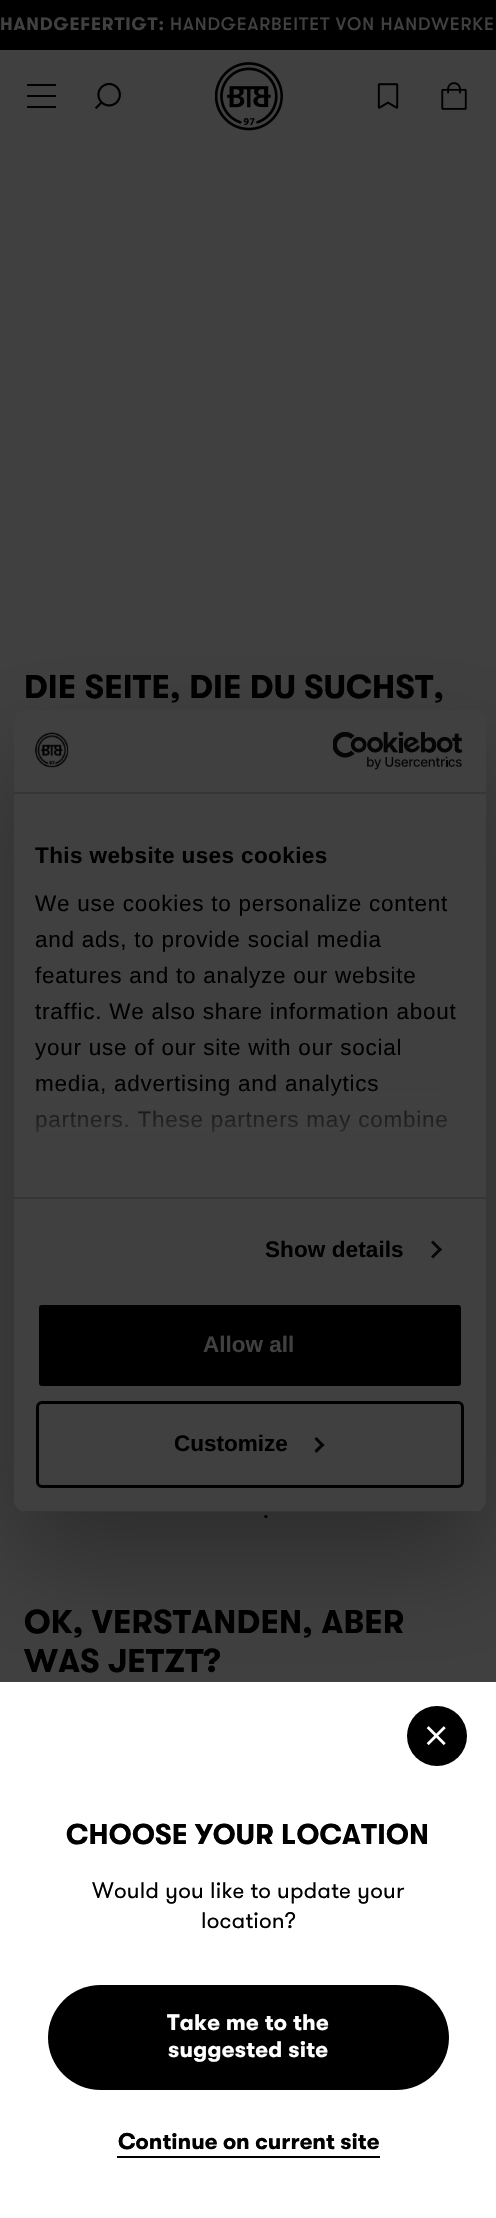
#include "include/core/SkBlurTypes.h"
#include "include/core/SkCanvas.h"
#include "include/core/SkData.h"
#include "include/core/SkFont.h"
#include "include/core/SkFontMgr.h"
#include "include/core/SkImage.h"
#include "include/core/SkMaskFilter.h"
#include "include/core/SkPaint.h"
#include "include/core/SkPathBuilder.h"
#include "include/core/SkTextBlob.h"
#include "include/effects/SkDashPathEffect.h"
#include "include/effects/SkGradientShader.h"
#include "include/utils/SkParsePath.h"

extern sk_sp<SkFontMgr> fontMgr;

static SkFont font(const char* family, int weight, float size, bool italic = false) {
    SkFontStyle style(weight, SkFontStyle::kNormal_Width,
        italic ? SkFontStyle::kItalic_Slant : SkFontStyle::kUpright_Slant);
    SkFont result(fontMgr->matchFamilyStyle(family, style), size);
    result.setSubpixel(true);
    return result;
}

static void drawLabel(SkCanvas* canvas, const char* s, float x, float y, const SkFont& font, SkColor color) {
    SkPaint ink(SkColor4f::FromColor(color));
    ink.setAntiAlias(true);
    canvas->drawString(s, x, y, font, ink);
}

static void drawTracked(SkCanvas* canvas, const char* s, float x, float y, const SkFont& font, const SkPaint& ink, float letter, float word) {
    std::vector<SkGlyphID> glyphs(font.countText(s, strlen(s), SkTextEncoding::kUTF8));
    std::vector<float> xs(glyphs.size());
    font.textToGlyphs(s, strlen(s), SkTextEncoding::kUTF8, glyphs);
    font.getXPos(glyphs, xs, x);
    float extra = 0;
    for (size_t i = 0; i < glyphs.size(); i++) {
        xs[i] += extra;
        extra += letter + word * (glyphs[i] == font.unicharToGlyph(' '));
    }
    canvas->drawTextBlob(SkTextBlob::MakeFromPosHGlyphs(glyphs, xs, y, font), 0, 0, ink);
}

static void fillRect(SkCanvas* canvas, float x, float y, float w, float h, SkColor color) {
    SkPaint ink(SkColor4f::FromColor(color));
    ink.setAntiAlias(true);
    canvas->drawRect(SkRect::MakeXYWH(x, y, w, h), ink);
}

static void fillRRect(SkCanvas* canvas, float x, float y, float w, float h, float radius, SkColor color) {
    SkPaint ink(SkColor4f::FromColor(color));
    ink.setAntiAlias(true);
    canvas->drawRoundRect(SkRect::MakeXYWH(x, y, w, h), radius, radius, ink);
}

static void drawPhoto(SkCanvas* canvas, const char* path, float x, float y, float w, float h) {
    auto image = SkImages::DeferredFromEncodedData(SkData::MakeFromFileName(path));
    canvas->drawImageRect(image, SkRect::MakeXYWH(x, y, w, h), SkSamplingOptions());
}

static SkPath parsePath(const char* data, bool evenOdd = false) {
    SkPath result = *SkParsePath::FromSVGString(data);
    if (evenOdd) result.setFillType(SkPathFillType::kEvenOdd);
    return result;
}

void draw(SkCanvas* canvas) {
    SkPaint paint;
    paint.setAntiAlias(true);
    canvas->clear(0xFF404040);
    fillRect(canvas, 0, 0, 496, 50, 0xFF000000);
    SkFont font1 = font("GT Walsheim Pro", 700, 18);
    paint.setColor(0xFF404040);
    drawTracked(canvas, "HANDGEFERTIGT:", 0, 30, font1, paint, 0.9f, 0);
    SkFont font2 = font("GT Walsheim Pro", 500, 18);
    drawTracked(canvas, "HANDGEARBEITET VON HANDWERKE", 170, 30, font2, paint, 0.9f, 0);
    fillRect(canvas, 27, 84, 29, 2, 0xFF000000);
    fillRect(canvas, 27, 95, 29, 2, 0xFF000000);
    fillRect(canvas, 27, 106, 29, 2, 0xFF000000);
    drawPhoto(canvas, "assets/img1.png", 94, 82, 27, 28);
    drawPhoto(canvas, "assets/img2.png", 215, 62, 68, 69);
    drawPhoto(canvas, "assets/img3.png", 377, 83, 22, 26);
    drawPhoto(canvas, "assets/img4.png", 441, 82, 26, 28);
    SkFont font3 = font("GT Walsheim Pro", 700, 33);
    paint.setColor(0xFF000000);
    drawTracked(canvas, "DIE SEITE, DIE DU SUCHST,", 24, 698, font3, paint, 0.25f, 0);
    SkFont font4 = font("GT Walsheim Pro", 400, 22.5f);
    drawTracked(canvas, ".", 263, 1518, font4, paint, 0.25f, 0);
    drawTracked(canvas, "OK, VERSTANDEN, ABER", 24, 1633, font3, paint, 0.25f, 0);
    drawTracked(canvas, "WAS JETZT?", 24, 1672, font3, paint, 0.25f, 0);
    paint.setColor(0x4D000000);
    paint.setMaskFilter(SkMaskFilter::MakeBlur(kNormal_SkBlurStyle, 51));
    canvas->drawRoundRect(SkRect::MakeXYWH(14, 758, 472, 802), 12, 12, paint);
    paint.setMaskFilter(nullptr);
    fillRect(canvas, 0, 1682, 496, 536, 0xFFFFFFFF);
    paint.setColor(0xFF000000);
    canvas->drawCircle(437, 1736, 30, paint);
    drawPhoto(canvas, "assets/img5.png", 426, 1726, 20, 20);
    SkFont font5 = font("GT Walsheim Pro", 700, 28.5f);
    drawTracked(canvas, "CHOOSE YOUR LOCATION", 66, 1844, font5, paint, 0.25f, 0);
    drawTracked(canvas, "Would you like to update your", 92, 1898, font4, paint, 0.25f, 0);
    drawTracked(canvas, "location?", 201, 1928, font4, paint, 0.25f, 0);
    fillRRect(canvas, 48, 1985, 401, 105, 52.5f, 0xFF000000);
    SkFont font6 = font("GT Walsheim Pro", 700, 22.5f);
    paint.setColor(0xFFFFFFFF);
    drawTracked(canvas, "Take me to the", 167, 2030, font6, paint, 0.25f, 0);
    drawTracked(canvas, "suggested site", 168, 2057, font6, paint, 0.25f, 0);
    drawLabel(canvas, "Continue on current site", 118, 2149, font6, 0xFF000000);
    fillRect(canvas, 117, 2156, 263, 2, 0xFF000000);
    fillRRect(canvas, 14, 710, 472, 802, 12, 0xFF404040);
    fillRect(canvas, 14, 792, 472, 2, 0xFF363636);
    drawPhoto(canvas, "assets/img6.png", 35, 732, 34, 36);
    drawPhoto(canvas, "assets/img7.png", 333, 732, 130, 38);
    fillRect(canvas, 14, 1197, 472, 2, 0xFF363636);
    SkFont font7 = font("Liberation Sans", 700, 22.5f);
    paint.setColor(0xFF000000);
    drawTracked(canvas, "This website uses cookies", 35, 863, font7, paint, 0.4f, 0);
    SkFont font8 = font("Liberation Sans", 400, 22.5f);
    drawTracked(canvas, "We use cookies to personalize content", 35, 911, font8, paint, 0.75f, 0);
    drawTracked(canvas, "and ads, to provide social media", 35, 947, font8, paint, 0.75f, 0);
    drawTracked(canvas, "features and to analyze our website", 35, 983, font8, paint, 0.75f, 0);
    drawTracked(canvas, "traffic. We also share information about", 35, 1019, font8, paint, 0.75f, 0);
    drawTracked(canvas, "your use of our site with our social", 35, 1055, font8, paint, 0.75f, 0);
    drawTracked(canvas, "media, advertising and analytics", 35, 1091, font8, paint, 0.75f, 0);
    drawTracked(canvas, "partners. These partners may combine", 35, 1127, font8, paint, 0.75f, 0);
    {
        const SkColor colors[] = {0xFF404040, 0xCC404040, 0x00404040};
        const float stops[] = {0, 0.5f, 1};
        const SkPoint ends[] = {{239, 1196}, {239, 1084}};
        paint.setShader(SkGradientShader::MakeLinear(ends, colors, stops, 3, SkTileMode::kClamp));
        paint.setAlpha(255);
    }
    canvas->drawRect(SkRect::MakeXYWH(36, 1087, 411, 45), paint);
    paint.setShader(nullptr);
    paint.setColor(0xFF000000);
    drawTracked(canvas, "Show details", 265, 1257, font7, paint, 0.1f, 0);
    paint.setColor(0xFF050505);
    canvas->drawPath(parsePath("M433 1240.5L442 1249.5L440 1251.5L431 1242.5Z"), paint);
    canvas->drawPath(parsePath("M440 1247.5L442 1249.5L433 1258.5L431 1256.5Z"), paint);
    canvas->save();
    canvas->clipPath(parsePath("M26 710H474C480.5 710 486 715.5 486 722V1500C486 1506.5 480.5 1512 474 1512H26C19.5 1512 14 1506.5 14 1500V722C14 715.5 19.5 710 26 710Z"), true);
    fillRect(canvas, 14, 1511, 472, 1, 0xFF363636);
    canvas->restore();
    paint.setColor(0xFF000000);
    canvas->drawRoundRect(SkRect::MakeXYWH(37.5f, 1303.5f, 425, 84), 4.5f, 4.5f, paint);
    paint.setStroke(true);
    paint.setStrokeWidth(3);
    paint.setColor(0xFF404040);
    canvas->drawRoundRect(SkRect::MakeXYWH(37.5f, 1303.5f, 425, 84), 4.5f, 4.5f, paint);
    drawLabel(canvas, "Allow all", 203, 1352, font7, 0xFF404040);
    paint.setColor(0xFF000000);
    canvas->drawRoundRect(SkRect::MakeXYWH(37.5f, 1402.5f, 425, 84), 4.5f, 4.5f, paint);
    drawLabel(canvas, "Customize", 174, 1451, font7, 0xFF000000);
    paint.setStroke(false);
    paint.setColor(0xFF050505);
    canvas->drawPath(parsePath("M316.5 1437L324.5 1445L322 1447L314.5 1439Z"), paint);
    canvas->drawPath(parsePath("M322 1443L324.5 1445L316.5 1453L314.5 1450.5Z"), paint);
}
